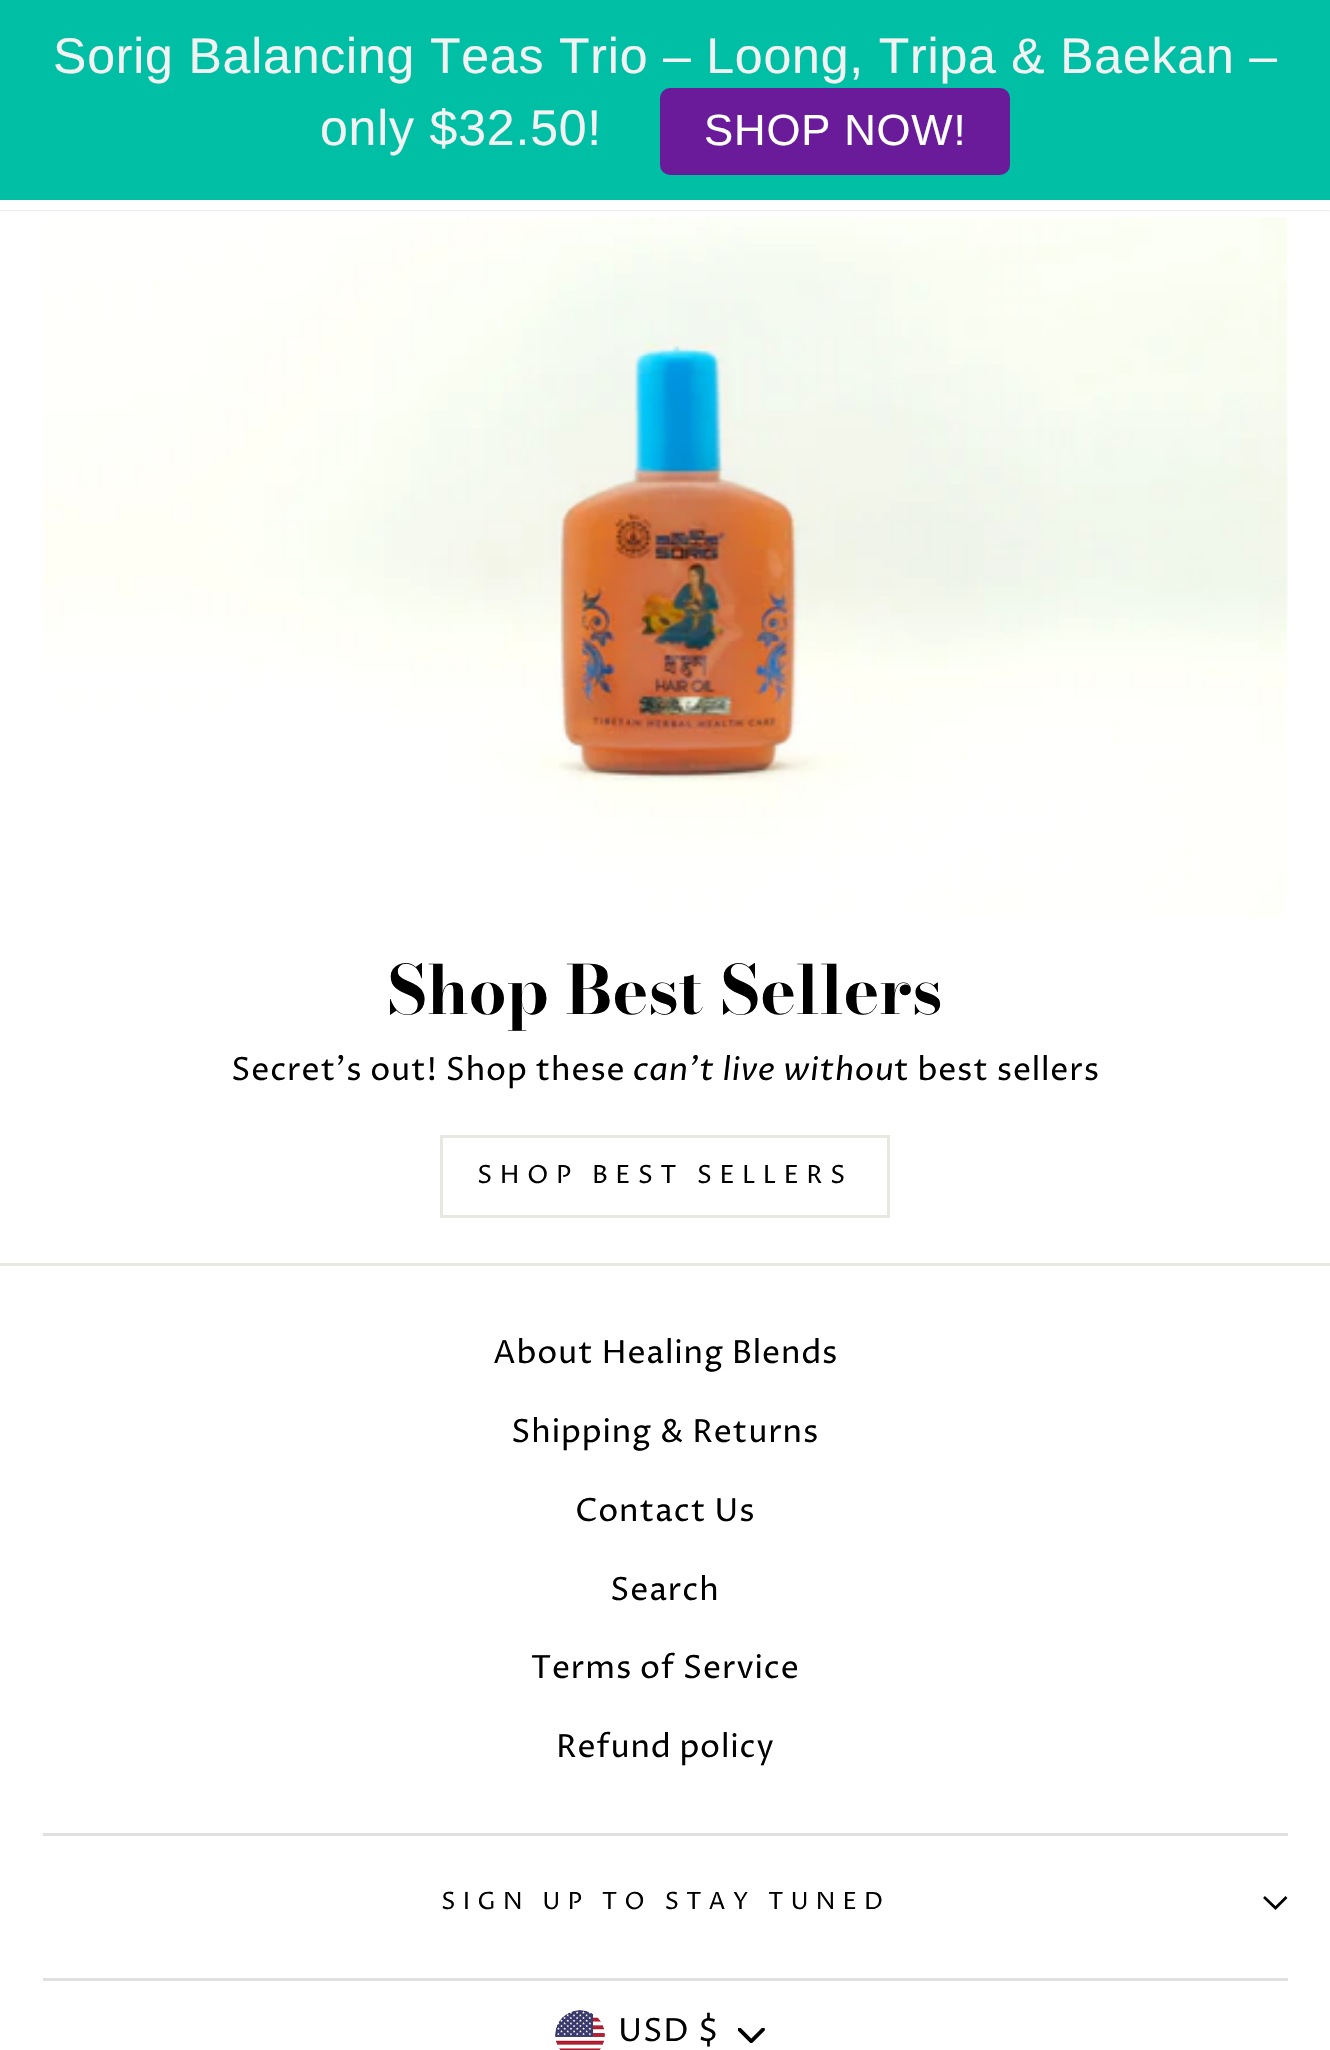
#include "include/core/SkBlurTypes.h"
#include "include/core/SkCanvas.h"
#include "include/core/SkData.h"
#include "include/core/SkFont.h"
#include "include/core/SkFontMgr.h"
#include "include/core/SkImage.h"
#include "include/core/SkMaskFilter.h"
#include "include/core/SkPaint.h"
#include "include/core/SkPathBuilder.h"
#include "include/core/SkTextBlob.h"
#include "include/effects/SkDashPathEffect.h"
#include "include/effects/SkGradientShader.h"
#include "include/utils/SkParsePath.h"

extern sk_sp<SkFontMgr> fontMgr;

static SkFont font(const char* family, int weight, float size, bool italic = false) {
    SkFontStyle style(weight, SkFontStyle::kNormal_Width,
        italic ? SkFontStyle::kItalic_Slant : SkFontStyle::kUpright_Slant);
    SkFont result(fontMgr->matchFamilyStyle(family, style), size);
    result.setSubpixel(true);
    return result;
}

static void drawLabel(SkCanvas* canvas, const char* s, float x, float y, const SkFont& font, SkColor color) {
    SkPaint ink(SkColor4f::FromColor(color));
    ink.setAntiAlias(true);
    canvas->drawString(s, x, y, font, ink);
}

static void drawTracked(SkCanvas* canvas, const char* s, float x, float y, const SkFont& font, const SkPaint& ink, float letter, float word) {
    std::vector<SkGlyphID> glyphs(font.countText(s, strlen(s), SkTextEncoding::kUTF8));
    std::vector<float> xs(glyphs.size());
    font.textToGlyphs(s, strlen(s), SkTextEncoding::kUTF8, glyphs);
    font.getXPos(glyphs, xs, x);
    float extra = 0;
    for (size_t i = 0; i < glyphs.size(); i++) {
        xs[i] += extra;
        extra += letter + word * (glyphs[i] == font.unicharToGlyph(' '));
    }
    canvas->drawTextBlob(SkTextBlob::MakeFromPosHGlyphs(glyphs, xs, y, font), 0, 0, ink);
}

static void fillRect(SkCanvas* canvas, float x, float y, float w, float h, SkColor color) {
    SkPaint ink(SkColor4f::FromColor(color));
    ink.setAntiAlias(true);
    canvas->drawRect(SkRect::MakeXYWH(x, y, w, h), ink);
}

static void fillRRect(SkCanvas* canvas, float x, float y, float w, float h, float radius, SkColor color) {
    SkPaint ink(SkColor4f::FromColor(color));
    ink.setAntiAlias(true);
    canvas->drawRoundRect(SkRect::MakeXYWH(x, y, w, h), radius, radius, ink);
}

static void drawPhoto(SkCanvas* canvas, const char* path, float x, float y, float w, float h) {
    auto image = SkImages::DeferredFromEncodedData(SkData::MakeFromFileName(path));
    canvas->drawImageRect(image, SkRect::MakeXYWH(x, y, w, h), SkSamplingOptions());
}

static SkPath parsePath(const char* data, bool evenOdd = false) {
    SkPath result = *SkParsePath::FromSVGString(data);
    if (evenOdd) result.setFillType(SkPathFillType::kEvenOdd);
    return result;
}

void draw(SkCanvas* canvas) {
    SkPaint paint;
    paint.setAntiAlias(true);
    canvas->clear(0xFFFFFFFF);
    paint.setColor(0x33000000);
    paint.setMaskFilter(SkMaskFilter::MakeBlur(kNormal_SkBlurStyle, 1));
    canvas->drawRect(SkRect::MakeXYWH(0, 0, 1330, 210), paint);
    paint.setMaskFilter(nullptr);
    fillRect(canvas, 0, 0, 1330, 200, 0xFF00BFA5);
    SkFont font1 = font("Liberation Sans", 400, 50);
    paint.setColor(0xFFF2F2F2);
    drawTracked(canvas, "Sorig Balancing Teas Trio – Loong, Tripa & Baekan –", 53, 73, font1, paint, 0.8f, 0);
    drawTracked(canvas, "only $32.50!", 320, 145, font1, paint, 0.8f, 0);
    fillRRect(canvas, 660, 88, 350, 87, 10, 0xFF6A1B9A);
    SkFont font2 = font("Liberation Sans", 400, 43.75f);
    paint.setColor(0xFFFFFFFF);
    drawTracked(canvas, "SHOP NOW!", 704, 145, font2, paint, 0.8f, 0);
    fillRect(canvas, 0, 200, 1330, 10, 0xFFFFFFFF);
    drawPhoto(canvas, "assets/img1.png", 43, 217, 1245, 701);
    SkFont font3 = font("Bodoni Moda", 700, 67);
    drawLabel(canvas, "Shop Best Sellers", 387, 1014, font3, 0xFF000000);
    SkFont font4 = font("Proza Libre", 400, 31.9f);
    paint.setColor(0xFF000000);
    drawTracked(canvas, "Secret's out! Shop these", 231, 1080, font4, paint, 0.8f, 0);
    SkFont font5 = font("Proza Libre", 400, 31.9f, true);
    drawTracked(canvas, "can't live withou", 633, 1080, font5, paint, 0.8f, 0);
    drawTracked(canvas, "t best sellers", 894, 1080, font4, paint, 0.8f, 0);
    paint.setStroke(true);
    paint.setStrokeWidth(3);
    paint.setColor(0xFFE8E8E1);
    canvas->drawRect(SkRect::MakeXYWH(441.5f, 1136.5f, 447, 80), paint);
    SkFont font6 = font("Proza Libre", 400, 25);
    paint.setStroke(false);
    paint.setColor(0xFF000000);
    drawTracked(canvas, "SHOP BEST SELLERS", 477, 1183, font6, paint, 7.5f, 0);
    fillRect(canvas, 0, 1263, 1330, 3, 0xFFE8E8E1);
    drawTracked(canvas, "About Healing Blends", 493, 1363, font4, paint, 0.8f, 0);
    drawTracked(canvas, "Shipping & Returns", 511, 1442, font4, paint, 0.8f, 0);
    drawTracked(canvas, "Contact Us", 575, 1521, font4, paint, 0.8f, 0);
    drawTracked(canvas, "Search", 610, 1600, font4, paint, 0.8f, 0);
    drawTracked(canvas, "Terms of Service", 531, 1678, font4, paint, 0.8f, 0);
    drawTracked(canvas, "Refund policy", 556, 1757, font4, paint, 0.8f, 0);
    fillRect(canvas, 43, 1833, 1245, 3, 0xFFE0E0E0);
    SkFont font7 = font("Proza Libre", 400, 23.9f);
    drawTracked(canvas, "SIGN UP TO STAY TUNED", 441, 1909, font7, paint, 7.2f, 0);
    paint.setStroke(true);
    paint.setStrokeWidth(2.7f);
    canvas->drawPath(parsePath("M1264 1897L1275.5 1908L1286.5 1897"), paint);
    fillRect(canvas, 43, 1978, 1245, 3, 0xFFE0E0E0);
    drawPhoto(canvas, "assets/img2.png", 738, 2028, 27, 15);
    drawPhoto(canvas, "assets/img3.png", 555, 2010, 50, 40);
    paint.setStroke(false);
    drawTracked(canvas, "USD $", 618, 2041, font4, paint, 0.8f, 0);
}
